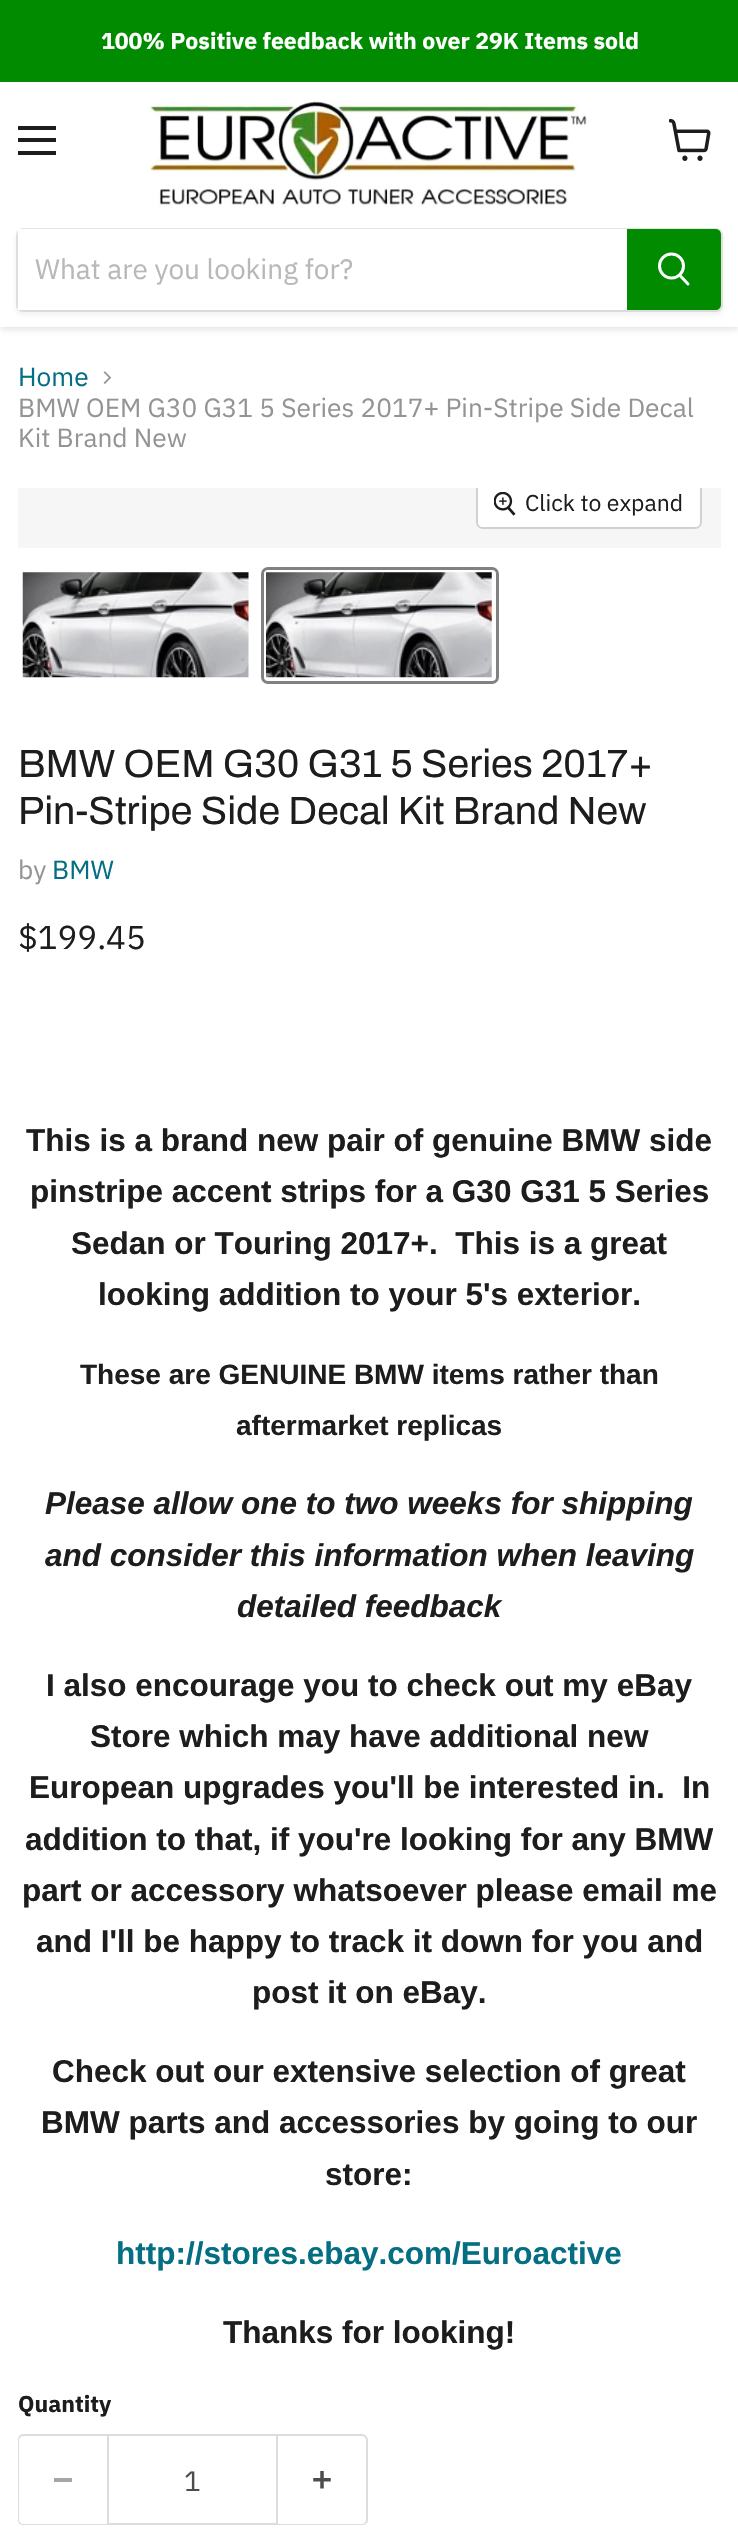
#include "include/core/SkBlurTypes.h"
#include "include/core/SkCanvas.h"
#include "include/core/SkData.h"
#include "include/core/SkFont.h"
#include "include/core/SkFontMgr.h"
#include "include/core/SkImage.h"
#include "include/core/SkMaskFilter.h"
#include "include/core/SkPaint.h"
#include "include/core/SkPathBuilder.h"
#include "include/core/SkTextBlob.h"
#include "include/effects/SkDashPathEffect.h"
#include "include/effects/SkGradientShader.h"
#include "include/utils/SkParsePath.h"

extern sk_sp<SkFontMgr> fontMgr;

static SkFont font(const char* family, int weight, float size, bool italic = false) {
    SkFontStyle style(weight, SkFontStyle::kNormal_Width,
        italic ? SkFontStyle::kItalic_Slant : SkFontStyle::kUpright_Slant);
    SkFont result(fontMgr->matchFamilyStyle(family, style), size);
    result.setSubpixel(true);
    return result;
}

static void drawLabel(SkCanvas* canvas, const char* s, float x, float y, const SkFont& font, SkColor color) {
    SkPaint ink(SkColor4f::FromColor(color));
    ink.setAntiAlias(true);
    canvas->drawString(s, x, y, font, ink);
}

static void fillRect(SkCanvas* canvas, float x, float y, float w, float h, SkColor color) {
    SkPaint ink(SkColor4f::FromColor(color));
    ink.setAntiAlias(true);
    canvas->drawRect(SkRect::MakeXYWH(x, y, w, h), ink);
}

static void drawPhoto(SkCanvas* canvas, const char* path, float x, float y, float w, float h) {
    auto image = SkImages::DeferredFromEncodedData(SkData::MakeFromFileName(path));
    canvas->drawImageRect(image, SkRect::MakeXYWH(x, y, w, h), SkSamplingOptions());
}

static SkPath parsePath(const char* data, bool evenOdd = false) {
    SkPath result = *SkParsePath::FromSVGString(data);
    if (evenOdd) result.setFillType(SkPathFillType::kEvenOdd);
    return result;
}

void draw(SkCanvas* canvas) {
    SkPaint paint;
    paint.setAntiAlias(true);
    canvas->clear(0xFFFFFFFF);
    fillRect(canvas, 0, 0, 738, 82, 0xFF008B00);
    SkFont font1 = font("IBM Plex Sans", 700, 23);
    drawLabel(canvas, "100% Positive feedback with over 29K Items sold", 101, 49, font1, 0xFFFFFFFF);
    paint.setColor(0x40808080);
    paint.setMaskFilter(SkMaskFilter::MakeBlur(kNormal_SkBlurStyle, 3.5f));
    canvas->drawRect(SkRect::MakeXYWH(0, 84, 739, 245), paint);
    paint.setMaskFilter(nullptr);
    fillRect(canvas, 0, 82, 738, 245, 0xFFFFFFFF);
    fillRect(canvas, 18, 126, 38, 4, 0xFF1D1D1D);
    fillRect(canvas, 18, 138, 38, 4, 0xFF1D1D1D);
    fillRect(canvas, 18, 151, 38, 4, 0xFF1D1D1D);
    drawPhoto(canvas, "assets/img1.png", 669, 119, 42, 42);
    drawPhoto(canvas, "assets/img2.png", 150, 100, 437, 107);
    paint.setColor(0x1C808080);
    paint.setMaskFilter(SkMaskFilter::MakeBlur(kNormal_SkBlurStyle, 2.5f));
    canvas->drawRoundRect(SkRect::MakeXYWH(16, 231, 707, 84), 7, 7, paint);
    paint.setMaskFilter(nullptr);
    paint.setStroke(true);
    paint.setStrokeWidth(2);
    paint.setColor(0x33808080);
    canvas->drawRoundRect(SkRect::MakeXYWH(17, 229, 705, 82), 6, 6, paint);
    fillRect(canvas, 18, 229, 609, 81, 0xFFFFFFFF);
    SkFont font2 = font("IBM Plex Sans", 400, 28);
    drawLabel(canvas, "What are you looking for?", 35, 279, font2, 0xFFB8B8B8);
    paint.setStroke(false);
    paint.setColor(0xFF008B00);
    canvas->drawPath(parsePath("M628 230H716C718 230 720 232 720 234V305C720 307 718 309 716 309H628Z"), paint);
    paint.setStroke(true);
    canvas->drawPath(parsePath("M628 230H716C718 230 720 232 720 234V305C720 307 718 309 716 309H628Z"), paint);
    paint.setStrokeWidth(3);
    paint.setStrokeCap(SkPaint::kRound_Cap);
    paint.setColor(0xFFFFFFFF);
    canvas->drawPath(parsePath("M688 284L680 275.5"), paint);
    paint.setStrokeCap(SkPaint::kButt_Cap);
    canvas->drawCircle(671.5f, 266, 12, paint);
    SkFont font3 = font("IBM Plex Sans", 400, 26.25f);
    drawLabel(canvas, "Home", 18, 386, font3, 0xFF046E82);
    drawPhoto(canvas, "assets/img3.png", 103, 371, 9, 13);
    drawLabel(canvas, "BMW OEM G30 G31 5 Series 2017+ Pin-Stripe Side Decal", 18, 417, font3, 0xFF949494);
    drawLabel(canvas, "Kit Brand New", 18, 447, font3, 0xFF949494);
    fillRect(canvas, 18, 488, 703, 60, 0xFFF6F6F6);
    canvas->save();
    canvas->clipRect(SkRect::MakeXYWH(18, 488, 703, 60));
    paint.setStrokeWidth(2);
    paint.setColor(0xFFD1D1D1);
    canvas->drawRoundRect(SkRect::MakeXYWH(477, 479, 224, 49), 6, 6, paint);
    canvas->restore();
    paint.setStroke(false);
    paint.setColor(0xE6FFFFFF);
    canvas->drawPath(parsePath("M478 488H700V522C700 525 698 527 695 527H483C480 527 478 525 478 522Z"), paint);
    drawPhoto(canvas, "assets/img4.png", 494, 492, 22, 24);
    SkFont font4 = font("IBM Plex Sans", 400, 23);
    drawLabel(canvas, "Click to expand", 525, 511, font4, 0xFF1D1D1D);
    drawPhoto(canvas, "assets/img5.png", 22, 572, 227, 106);
    paint.setStroke(true);
    paint.setStrokeWidth(3);
    paint.setColor(0xFF818181);
    canvas->drawRoundRect(SkRect::MakeXYWH(262.5f, 568.5f, 235, 114), 5.5f, 5.5f, paint);
    drawPhoto(canvas, "assets/img6.png", 266, 572, 226, 106);
    SkFont font5 = font("Archivo", 400, 39.4f);
    drawLabel(canvas, "BMW OEM G30 G31 5 Series 2017+", 18, 777, font5, 0xFF1D1D1D);
    drawLabel(canvas, "Pin-Stripe Side Decal Kit Brand New", 18, 824, font5, 0xFF1D1D1D);
    drawLabel(canvas, "by", 18, 879, font3, 0xFF949494);
    drawLabel(canvas, "BMW", 52, 879, font3, 0xFF046E82);
    SkFont font6 = font("IBM Plex Sans", 400, 33);
    drawLabel(canvas, "$199.45", 18, 949, font6, 0xFF1D1D1D);
    SkFont font7 = font("Liberation Sans", 700, 31.5f);
    drawLabel(canvas, "This is a brand new pair of genuine BMW side", 26, 1151, font7, 0xFF1D1D1D);
    drawLabel(canvas, "pinstripe accent strips for a G30 G31 5 Series", 30, 1202, font7, 0xFF1D1D1D);
    drawLabel(canvas, "Sedan or Touring 2017+.  This is a great", 71, 1254, font7, 0xFF1D1D1D);
    drawLabel(canvas, "looking addition to your 5's exterior.", 98, 1305, font7, 0xFF1D1D1D);
    SkFont font8 = font("Liberation Sans", 700, 28);
    drawLabel(canvas, "These are GENUINE BMW items rather than", 80, 1384, font8, 0xFF1D1D1D);
    drawLabel(canvas, "aftermarket replicas", 236, 1435, font8, 0xFF1D1D1D);
    SkFont font9 = font("Liberation Sans", 700, 31.5f, true);
    drawLabel(canvas, "Please allow one to two weeks for shipping", 45, 1514, font9, 0xFF1D1D1D);
    drawLabel(canvas, "and consider this information when leaving", 45, 1566, font9, 0xFF1D1D1D);
    drawLabel(canvas, "detailed feedback", 237, 1617, font9, 0xFF1D1D1D);
    drawLabel(canvas, "I also encourage you to check out my eBay", 46, 1696, font7, 0xFF1D1D1D);
    drawLabel(canvas, "Store which may have additional new", 90, 1747, font7, 0xFF1D1D1D);
    drawLabel(canvas, "European upgrades you'll be interested in.  In", 29, 1798, font7, 0xFF1D1D1D);
    drawLabel(canvas, "addition to that, if you're looking for any BMW", 25, 1850, font7, 0xFF1D1D1D);
    drawLabel(canvas, "part or accessory whatsoever please email me", 22, 1901, font7, 0xFF1D1D1D);
    drawLabel(canvas, "and I'll be happy to track it down for you and", 36, 1952, font7, 0xFF1D1D1D);
    drawLabel(canvas, "post it on eBay.", 252, 2003, font7, 0xFF1D1D1D);
    drawLabel(canvas, "Check out our extensive selection of great", 52, 2082, font7, 0xFF1D1D1D);
    drawLabel(canvas, "BMW parts and accessories by going to our", 41, 2133, font7, 0xFF1D1D1D);
    drawLabel(canvas, "store:", 325, 2185, font7, 0xFF1D1D1D);
    drawLabel(canvas, "http://stores.ebay.com/Euroactive", 116, 2264, font7, 0xFF046E82);
    drawLabel(canvas, "Thanks for looking!", 223, 2343, font7, 0xFF1D1D1D);
    drawLabel(canvas, "Quantity", 18, 2412, font1, 0xFF1D1D1D);
    paint.setStroke(false);
    paint.setColor(0xFFDDDDDD);
    canvas->drawPath(parsePath("M23 2434H107V2525H23C20 2525 18 2523 18 2520V2440C18 2437 20 2434 23 2434ZM23 2436H107V2524H23C21 2524 19 2522 19 2520V2440C19 2438 21 2436 23 2436Z", true), paint);
    fillRect(canvas, 54, 2478, 18, 4, 0xFFA6A6A6);
    paint.setStroke(true);
    paint.setStrokeWidth(2);
    canvas->drawRect(SkRect::MakeXYWH(108, 2435, 169, 89), paint);
    drawLabel(canvas, "1", 184, 2491, font2, 0xFF4D4D4D);
    paint.setStroke(false);
    canvas->drawPath(parsePath("M278 2434H362C365 2434 368 2437 368 2440V2520C368 2523 365 2525 362 2525H278ZM278 2436H362C364 2436 366 2438 366 2440V2520C366 2522 364 2524 362 2524H278Z", true), paint);
    drawPhoto(canvas, "assets/img7.png", 313, 2471, 18, 18);
}
